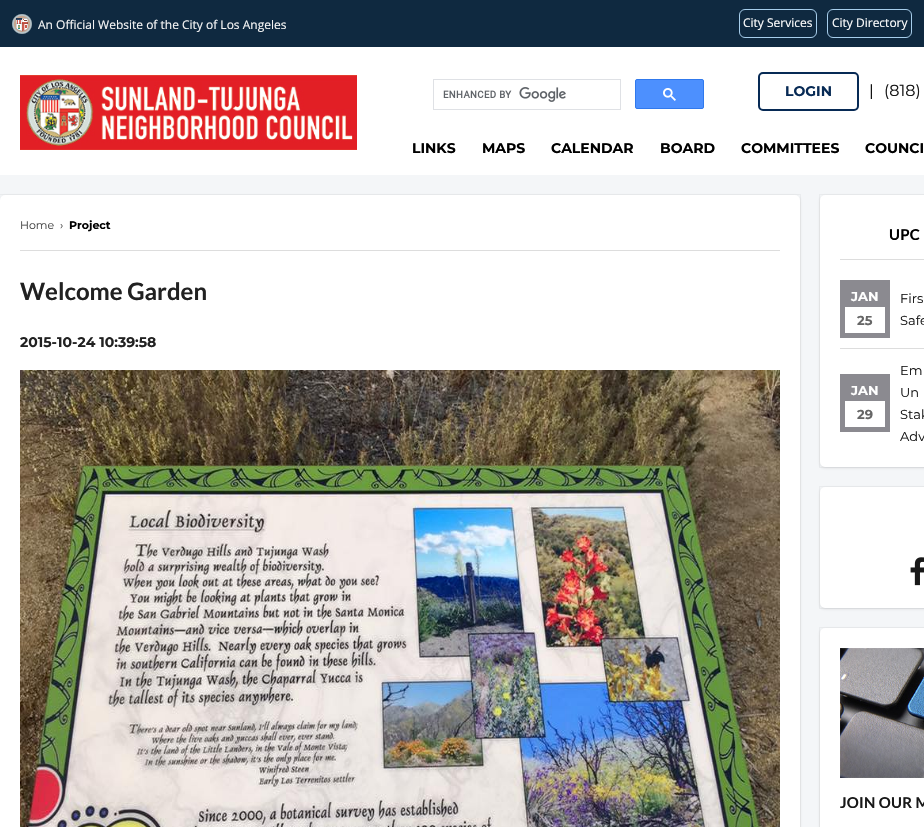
#include "include/core/SkBlurTypes.h"
#include "include/core/SkCanvas.h"
#include "include/core/SkData.h"
#include "include/core/SkFont.h"
#include "include/core/SkFontMgr.h"
#include "include/core/SkImage.h"
#include "include/core/SkMaskFilter.h"
#include "include/core/SkPaint.h"
#include "include/core/SkPathBuilder.h"
#include "include/core/SkTextBlob.h"
#include "include/effects/SkDashPathEffect.h"
#include "include/effects/SkGradientShader.h"
#include "include/utils/SkParsePath.h"

extern sk_sp<SkFontMgr> fontMgr;

static SkFont font(const char* family, int weight, float size, bool italic = false) {
    SkFontStyle style(weight, SkFontStyle::kNormal_Width,
        italic ? SkFontStyle::kItalic_Slant : SkFontStyle::kUpright_Slant);
    SkFont result(fontMgr->matchFamilyStyle(family, style), size);
    result.setSubpixel(true);
    return result;
}

static void drawLabel(SkCanvas* canvas, const char* s, float x, float y, const SkFont& font, SkColor color) {
    SkPaint ink(SkColor4f::FromColor(color));
    ink.setAntiAlias(true);
    canvas->drawString(s, x, y, font, ink);
}

static void drawTracked(SkCanvas* canvas, const char* s, float x, float y, const SkFont& font, const SkPaint& ink, float letter, float word) {
    std::vector<SkGlyphID> glyphs(font.countText(s, strlen(s), SkTextEncoding::kUTF8));
    std::vector<float> xs(glyphs.size());
    font.textToGlyphs(s, strlen(s), SkTextEncoding::kUTF8, glyphs);
    font.getXPos(glyphs, xs, x);
    float extra = 0;
    for (size_t i = 0; i < glyphs.size(); i++) {
        xs[i] += extra;
        extra += letter + word * (glyphs[i] == font.unicharToGlyph(' '));
    }
    canvas->drawTextBlob(SkTextBlob::MakeFromPosHGlyphs(glyphs, xs, y, font), 0, 0, ink);
}

static void fillRect(SkCanvas* canvas, float x, float y, float w, float h, SkColor color) {
    SkPaint ink(SkColor4f::FromColor(color));
    ink.setAntiAlias(true);
    canvas->drawRect(SkRect::MakeXYWH(x, y, w, h), ink);
}

static void fillRRect(SkCanvas* canvas, float x, float y, float w, float h, float radius, SkColor color) {
    SkPaint ink(SkColor4f::FromColor(color));
    ink.setAntiAlias(true);
    canvas->drawRoundRect(SkRect::MakeXYWH(x, y, w, h), radius, radius, ink);
}

static void drawPhoto(SkCanvas* canvas, const char* path, float x, float y, float w, float h) {
    auto image = SkImages::DeferredFromEncodedData(SkData::MakeFromFileName(path));
    canvas->drawImageRect(image, SkRect::MakeXYWH(x, y, w, h), SkSamplingOptions());
}

void draw(SkCanvas* canvas) {
    SkPaint paint;
    paint.setAntiAlias(true);
    canvas->clear(0xFFF4F6F8);
    fillRect(canvas, 0, 0, 924, 47, 0xFF0F2940);
    drawPhoto(canvas, "assets/img1.png", 12, 14, 20, 20);
    SkFont font1 = font("Open Sans", 400, 12);
    drawLabel(canvas, "An Official Website of the City of Los Angeles", 38, 29, font1, 0xFFF5F5F5);
    paint.setStroke(true);
    paint.setStrokeWidth(1);
    paint.setColor(0xFFA7CEEC);
    canvas->drawRoundRect(SkRect::MakeXYWH(739.5f, 9.5f, 77, 28), 5.5f, 5.5f, paint);
    drawLabel(canvas, "City Services", 743, 27, font1, 0xFFFFFFFF);
    canvas->drawRoundRect(SkRect::MakeXYWH(827.5f, 9.5f, 84, 28), 5.5f, 5.5f, paint);
    drawLabel(canvas, "City Directory", 832, 27, font1, 0xFFFFFFFF);
    fillRect(canvas, 0, 47, 924, 128, 0xFFFFFFFF);
    drawPhoto(canvas, "assets/img2.png", 20, 75, 337, 75);
    paint.setColor(0xFFDFE1E5);
    canvas->drawRect(SkRect::MakeXYWH(433.5f, 79.5f, 187, 30), paint);
    drawPhoto(canvas, "assets/img3.png", 443, 87, 123, 15);
    paint.setStroke(false);
    paint.setColor(0xFF4D90FE);
    canvas->drawRoundRect(SkRect::MakeXYWH(635.5f, 79.5f, 68, 29), 1.5f, 1.5f, paint);
    paint.setStroke(true);
    paint.setColor(0xFF3079ED);
    canvas->drawRoundRect(SkRect::MakeXYWH(635.5f, 79.5f, 68, 29), 1.5f, 1.5f, paint);
    drawPhoto(canvas, "assets/img4.png", 663, 88, 13, 13);
    paint.setStrokeWidth(2);
    paint.setColor(0xFF072A55);
    canvas->drawRoundRect(SkRect::MakeXYWH(759, 73, 99, 37), 4, 4, paint);
    SkFont font2 = font("Montserrat", 700, 14);
    drawLabel(canvas, "LOGIN", 785, 96, font2, 0xFF072A55);
    SkFont font3 = font("Montserrat", 400, 16);
    drawLabel(canvas, "|", 869, 96, font3, 0xFF000000);
    drawLabel(canvas, "(818)", 884, 96, font3, 0xFF181818);
    drawLabel(canvas, "LINKS", 412, 153, font2, 0xFF000000);
    drawLabel(canvas, "MAPS", 482, 153, font2, 0xFF000000);
    drawLabel(canvas, "CALENDAR", 551, 153, font2, 0xFF000000);
    drawLabel(canvas, "BOARD", 660, 153, font2, 0xFF000000);
    drawLabel(canvas, "COMMITTEES", 741, 153, font2, 0xFF000000);
    drawLabel(canvas, "COUNCI", 865, 153, font2, 0xFF000000);
    paint.setStroke(false);
    paint.setColor(0x263F3F44);
    paint.setMaskFilter(SkMaskFilter::MakeBlur(kNormal_SkBlurStyle, 1.5f));
    canvas->drawRoundRect(SkRect::MakeXYWH(0, 196, 800, 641), 5, 5, paint);
    paint.setMaskFilter(nullptr);
    paint.setStroke(true);
    paint.setStrokeWidth(1);
    paint.setColor(0x0D3F3F44);
    canvas->drawRect(SkRect::MakeXYWH(-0.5f, 194.5f, 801, 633), paint);
    fillRRect(canvas, 0, 195, 800, 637, 5, 0xFFFFFFFF);
    fillRect(canvas, 20, 250, 760, 1, 0xFFDDDDDD);
    SkFont font4 = font("Montserrat", 400, 11);
    drawLabel(canvas, "Home", 20, 229, font4, 0xFF444444);
    drawLabel(canvas, "›", 60, 229, font4, 0xFF444444);
    SkFont font5 = font("Montserrat", 700, 11);
    drawLabel(canvas, "Project", 69, 229, font5, 0xFF000000);
    SkFont font6 = font("Lato", 700, 24);
    drawLabel(canvas, "Welcome Garden", 20, 300, font6, 0xFF212121);
    drawLabel(canvas, "2015-10-24 10:39:58", 20, 347, font2, 0xFF212121);
    drawPhoto(canvas, "assets/img5.png", 20, 370, 760, 457);
    paint.setStroke(false);
    paint.setColor(0x263F3F44);
    paint.setMaskFilter(SkMaskFilter::MakeBlur(kNormal_SkBlurStyle, 1.5f));
    canvas->drawRoundRect(SkRect::MakeXYWH(820, 196, 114, 272), 5, 5, paint);
    paint.setMaskFilter(nullptr);
    paint.setStroke(true);
    paint.setColor(0x0D3F3F44);
    canvas->drawRect(SkRect::MakeXYWH(819.5f, 194.5f, 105, 273), paint);
    fillRRect(canvas, 820, 195, 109, 272, 5, 0xFFFFFFFF);
    fillRect(canvas, 840, 259, 84, 1, 0xFFDDDDDD);
    SkFont font7 = font("Lato", 700, 15);
    paint.setStroke(false);
    paint.setColor(0xFF000000);
    drawTracked(canvas, "UPC", 889, 240, font7, paint, 0.25f, 0);
    fillRect(canvas, 840, 280, 50, 58, 0xFF8B8A90);
    SkFont font8 = font("Montserrat", 700, 13);
    drawLabel(canvas, "JAN", 851, 301, font8, 0xFFFFFFFF);
    fillRect(canvas, 845, 307, 40, 26, 0xFFFFFFFF);
    drawLabel(canvas, "25", 857, 325, font8, 0xFF666666);
    SkFont font9 = font("Montserrat", 400, 13);
    drawLabel(canvas, "Firs", 900, 303, font9, 0xFF181818);
    drawLabel(canvas, "Safe", 900, 325, font9, 0xFF181818);
    fillRect(canvas, 840, 348, 84, 1, 0xFFDDDDDD);
    fillRect(canvas, 840, 374, 50, 58, 0xFF8B8A90);
    drawLabel(canvas, "JAN", 851, 395, font8, 0xFFFFFFFF);
    fillRect(canvas, 845, 401, 40, 26, 0xFFFFFFFF);
    drawLabel(canvas, "29", 857, 419, font8, 0xFF666666);
    drawLabel(canvas, "Em", 900, 375, font9, 0xFF181818);
    drawLabel(canvas, "Un", 900, 397, font9, 0xFF181818);
    drawLabel(canvas, "Stak", 900, 419, font9, 0xFF181818);
    drawLabel(canvas, "Adv", 900, 441, font9, 0xFF181818);
    paint.setColor(0x263F3F44);
    paint.setMaskFilter(SkMaskFilter::MakeBlur(kNormal_SkBlurStyle, 1.5f));
    canvas->drawRoundRect(SkRect::MakeXYWH(820, 488, 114, 121), 5, 5, paint);
    paint.setMaskFilter(nullptr);
    paint.setStroke(true);
    paint.setColor(0x0D3F3F44);
    canvas->drawRect(SkRect::MakeXYWH(819.5f, 486.5f, 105, 122), paint);
    fillRRect(canvas, 820, 487, 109, 121, 5, 0xFFFFFFFF);
    drawPhoto(canvas, "assets/img6.png", 910, 557, 14, 29);
    paint.setStroke(false);
    paint.setColor(0x263F3F44);
    paint.setMaskFilter(SkMaskFilter::MakeBlur(kNormal_SkBlurStyle, 1.5f));
    canvas->drawRoundRect(SkRect::MakeXYWH(820, 629, 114, 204), 5, 5, paint);
    paint.setMaskFilter(nullptr);
    paint.setStroke(true);
    paint.setColor(0x0D3F3F44);
    canvas->drawRect(SkRect::MakeXYWH(819.5f, 627.5f, 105, 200), paint);
    fillRRect(canvas, 820, 628, 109, 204, 5, 0xFFFFFFFF);
    drawPhoto(canvas, "assets/img7.png", 840, 648, 84, 130);
    paint.setStroke(false);
    paint.setColor(0xFF181818);
    drawTracked(canvas, "JOIN OUR M", 840, 808, font7, paint, 0.25f, 0);
}
